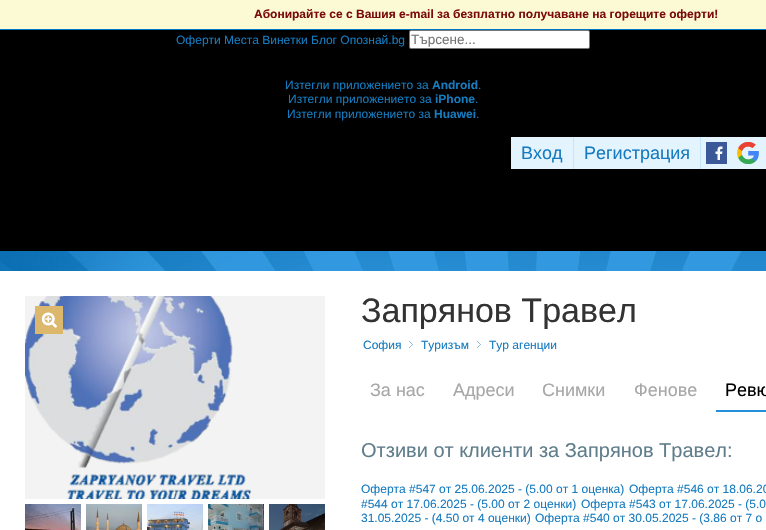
#include "include/core/SkBlurTypes.h"
#include "include/core/SkCanvas.h"
#include "include/core/SkData.h"
#include "include/core/SkFont.h"
#include "include/core/SkFontMgr.h"
#include "include/core/SkImage.h"
#include "include/core/SkMaskFilter.h"
#include "include/core/SkPaint.h"
#include "include/core/SkPathBuilder.h"
#include "include/core/SkTextBlob.h"
#include "include/effects/SkDashPathEffect.h"
#include "include/effects/SkGradientShader.h"
#include "include/utils/SkParsePath.h"

extern sk_sp<SkFontMgr> fontMgr;

static SkFont font(const char* family, int weight, float size, bool italic = false) {
    SkFontStyle style(weight, SkFontStyle::kNormal_Width,
        italic ? SkFontStyle::kItalic_Slant : SkFontStyle::kUpright_Slant);
    SkFont result(fontMgr->matchFamilyStyle(family, style), size);
    result.setSubpixel(true);
    return result;
}

static void drawLabel(SkCanvas* canvas, const char* s, float x, float y, const SkFont& font, SkColor color) {
    SkPaint ink(SkColor4f::FromColor(color));
    ink.setAntiAlias(true);
    canvas->drawString(s, x, y, font, ink);
}

static void fillRect(SkCanvas* canvas, float x, float y, float w, float h, SkColor color) {
    SkPaint ink(SkColor4f::FromColor(color));
    ink.setAntiAlias(true);
    canvas->drawRect(SkRect::MakeXYWH(x, y, w, h), ink);
}

static void fillRRect(SkCanvas* canvas, float x, float y, float w, float h, float radius, SkColor color) {
    SkPaint ink(SkColor4f::FromColor(color));
    ink.setAntiAlias(true);
    canvas->drawRoundRect(SkRect::MakeXYWH(x, y, w, h), radius, radius, ink);
}

static void drawPhoto(SkCanvas* canvas, const char* path, float x, float y, float w, float h) {
    auto image = SkImages::DeferredFromEncodedData(SkData::MakeFromFileName(path));
    canvas->drawImageRect(image, SkRect::MakeXYWH(x, y, w, h), SkSamplingOptions());
}

void draw(SkCanvas* canvas) {
    SkPaint paint;
    paint.setAntiAlias(true);
    canvas->clear(0xFF000000);
    fillRect(canvas, 0, 0, 766, 29, 0xFFFCFAD4);
    fillRect(canvas, 0, 29, 766, 1, 0xFF0077C9);
    SkFont font1 = font("Liberation Sans", 700, 12);
    drawLabel(canvas, "Абонирайте се с Вашия e-mail за безплатно получаване на горещите оферти!", 254, 18, font1, 0xFF7B0B0B);
    SkFont font2 = font("Liberation Sans", 400, 12);
    drawLabel(canvas, "Оферти Места Винетки Блог Опознай.bg", 176, 44, font2, 0xFF167BBF);
    paint.setColor(0xFFFFFFFF);
    canvas->drawRoundRect(SkRect::MakeXYWH(409.5f, 30.5f, 180, 18), 1.5f, 1.5f, paint);
    paint.setStroke(true);
    paint.setStrokeWidth(1);
    paint.setColor(0xFF767676);
    canvas->drawRoundRect(SkRect::MakeXYWH(409.5f, 30.5f, 180, 18), 1.5f, 1.5f, paint);
    SkFont font3 = font("Liberation Sans", 400, 13.5f);
    drawLabel(canvas, "Търсене...", 411, 44, font3, 0xFF757575);
    drawLabel(canvas, "Изтегли приложението за", 285, 89, font2, 0xFF167BBF);
    drawLabel(canvas, "Android", 432, 89, font1, 0xFF167BBF);
    drawLabel(canvas, ".", 478, 89, font2, 0xFF167BBF);
    drawLabel(canvas, "Изтегли приложението за", 288, 103, font2, 0xFF167BBF);
    drawLabel(canvas, "iPhone", 435, 103, font1, 0xFF167BBF);
    drawLabel(canvas, ".", 475, 103, font2, 0xFF167BBF);
    drawLabel(canvas, "Изтегли приложението за", 287, 118, font2, 0xFF167BBF);
    drawLabel(canvas, "Huawei", 434, 118, font1, 0xFF167BBF);
    drawLabel(canvas, ".", 476, 118, font2, 0xFF167BBF);
    fillRect(canvas, 573, 137, 1, 32, 0xFFC2E6FD);
    fillRect(canvas, 700, 137, 1, 32, 0xFFC2E6FD);
    fillRect(canvas, 701, 137, 65, 32, 0xFFE3F4FF);
    drawPhoto(canvas, "assets/img1.png", 737, 142, 22, 22);
    fillRect(canvas, 511, 137, 62, 32, 0xFFE3F4FF);
    SkFont font4 = font("Liberation Sans", 400, 18);
    drawLabel(canvas, "Вход", 521, 159, font4, 0xFF167BBF);
    fillRect(canvas, 574, 137, 126, 32, 0xFFE3F4FF);
    drawLabel(canvas, "Регистрация", 584, 159, font4, 0xFF167BBF);
    drawPhoto(canvas, "assets/img2.png", 706, 142, 21, 22);
    drawPhoto(canvas, "assets/img3.png", 0, 251, 766, 20);
    fillRect(canvas, 0, 271, 766, 259, 0xFFFFFFFF);
    fillRect(canvas, 25, 296, 300, 203, 0xFFF4F3F3);
    drawPhoto(canvas, "assets/img4.png", 25, 296, 227, 203);
    fillRect(canvas, 35, 306, 28, 28, 0xFFDCB86C);
    drawPhoto(canvas, "assets/img5.png", 42, 312, 15, 16);
    drawPhoto(canvas, "assets/img6.png", 25, 504, 56, 26);
    drawPhoto(canvas, "assets/img7.png", 86, 504, 56, 26);
    drawPhoto(canvas, "assets/img8.png", 147, 504, 56, 26);
    drawPhoto(canvas, "assets/img9.png", 208, 504, 56, 26);
    drawPhoto(canvas, "assets/img10.png", 269, 504, 56, 26);
    SkFont font5 = font("Liberation Sans", 400, 34);
    drawLabel(canvas, "Запрянов Травел", 361, 322, font5, 0xFF333333);
    drawLabel(canvas, "София", 363, 349, font2, 0xFF167BBF);
    drawPhoto(canvas, "assets/img11.png", 409, 341, 4, 7);
    drawLabel(canvas, "Туризъм", 421, 349, font2, 0xFF167BBF);
    drawPhoto(canvas, "assets/img11.png", 477, 341, 4, 7);
    drawLabel(canvas, "Тур агенции", 489, 349, font2, 0xFF167BBF);
    drawLabel(canvas, "За нас", 370, 396, font4, 0xFFA7A7A7);
    drawLabel(canvas, "Адреси", 453, 396, font4, 0xFFA7A7A7);
    drawLabel(canvas, "Снимки", 542, 396, font4, 0xFFA7A7A7);
    drawLabel(canvas, "Фенове", 634, 396, font4, 0xFFA7A7A7);
    fillRect(canvas, 716, 410, 50, 2, 0xFF238FDB);
    drawLabel(canvas, "Ревю", 725, 396, font4, 0xFF000000);
    fillRRect(canvas, 765, 376, 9, 15, 7.5f, 0xFFFFFFFF);
    SkFont font6 = font("Liberation Sans", 400, 20);
    drawLabel(canvas, "Отзиви от клиенти за Запрянов Травел:", 361, 457, font6, 0xFF607D8B);
    drawLabel(canvas, "Оферта #547 от 25.06.2025 - (5.00 от 1 оценка)", 361, 493, font2, 0xFF167BBF);
    drawLabel(canvas, "Оферта #546 от 18.06.20", 629, 493, font2, 0xFF167BBF);
    drawLabel(canvas, "#544 от 17.06.2025 - (5.00 от 2 оценки)", 361, 508, font2, 0xFF167BBF);
    drawLabel(canvas, "Оферта #543 от 17.06.2025 - (5.0", 581, 508, font2, 0xFF167BBF);
    drawLabel(canvas, "31.05.2025 - (4.50 от 4 оценки)", 361, 522, font2, 0xFF167BBF);
    drawLabel(canvas, "Оферта #540 от 30.05.2025 - (3.86 от 7 о", 535, 522, font2, 0xFF167BBF);
}
